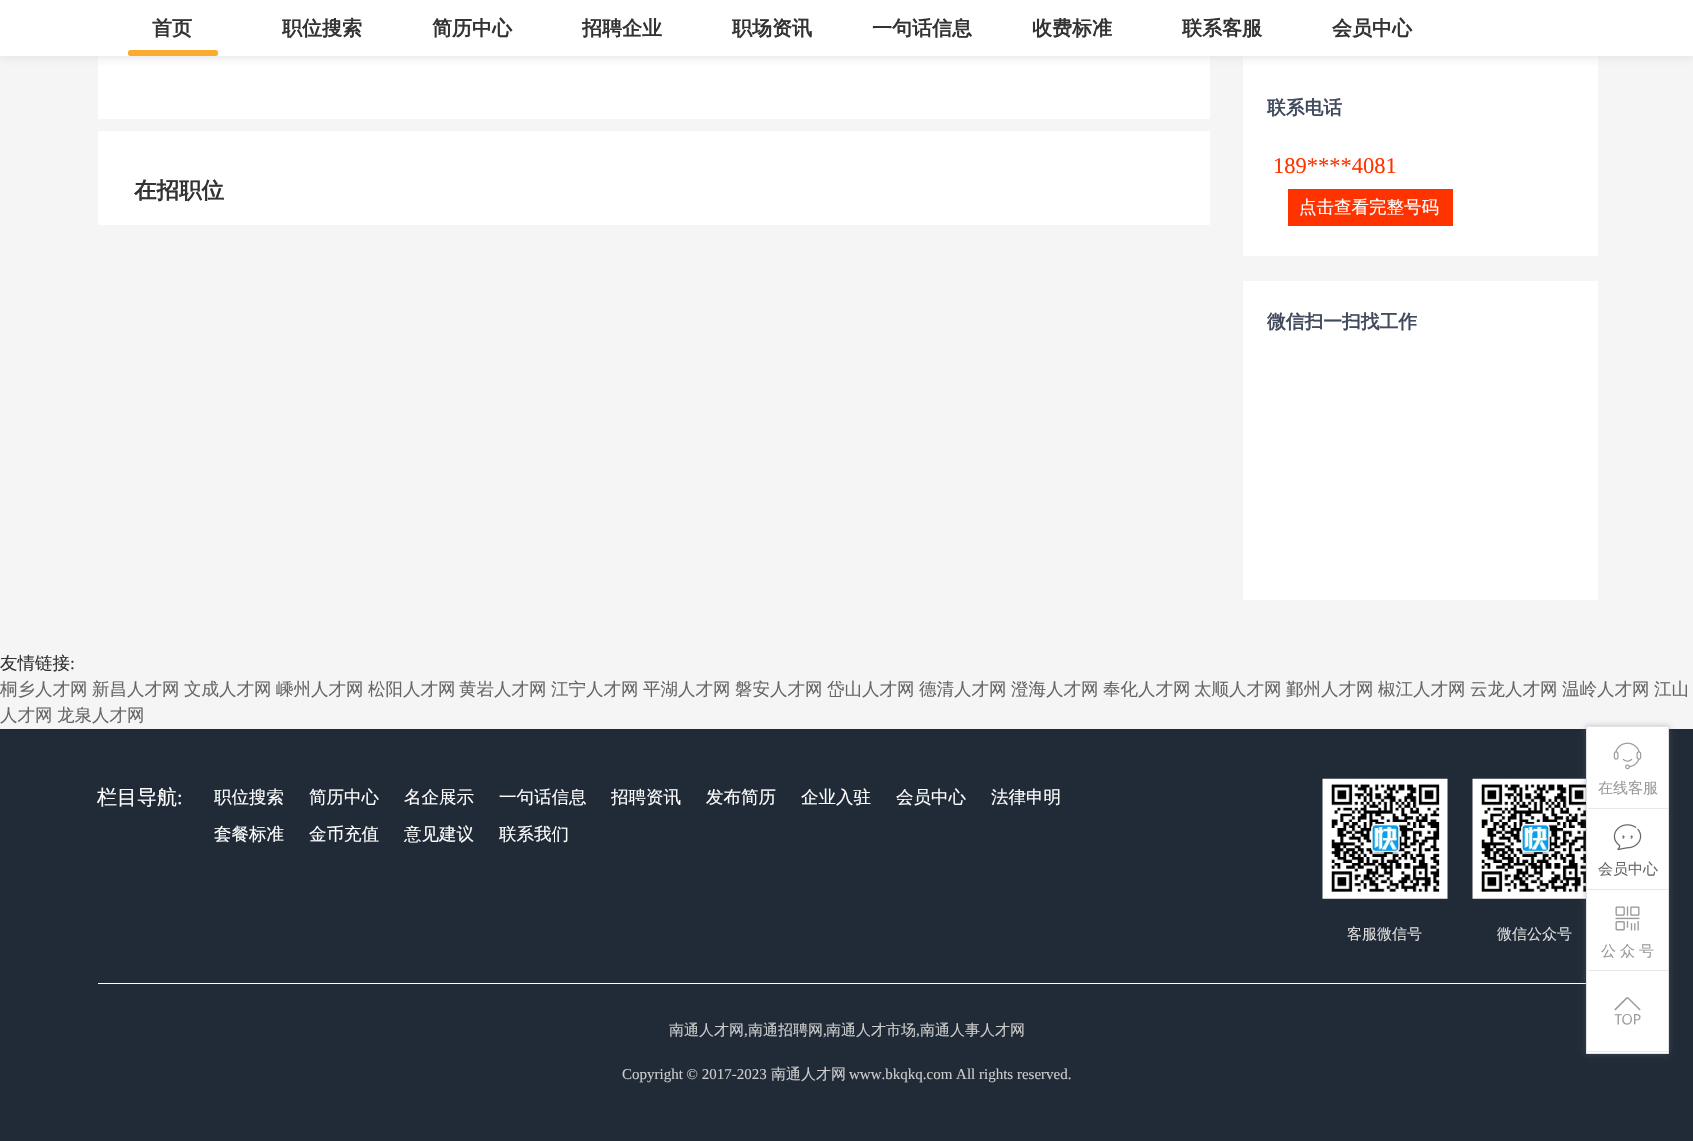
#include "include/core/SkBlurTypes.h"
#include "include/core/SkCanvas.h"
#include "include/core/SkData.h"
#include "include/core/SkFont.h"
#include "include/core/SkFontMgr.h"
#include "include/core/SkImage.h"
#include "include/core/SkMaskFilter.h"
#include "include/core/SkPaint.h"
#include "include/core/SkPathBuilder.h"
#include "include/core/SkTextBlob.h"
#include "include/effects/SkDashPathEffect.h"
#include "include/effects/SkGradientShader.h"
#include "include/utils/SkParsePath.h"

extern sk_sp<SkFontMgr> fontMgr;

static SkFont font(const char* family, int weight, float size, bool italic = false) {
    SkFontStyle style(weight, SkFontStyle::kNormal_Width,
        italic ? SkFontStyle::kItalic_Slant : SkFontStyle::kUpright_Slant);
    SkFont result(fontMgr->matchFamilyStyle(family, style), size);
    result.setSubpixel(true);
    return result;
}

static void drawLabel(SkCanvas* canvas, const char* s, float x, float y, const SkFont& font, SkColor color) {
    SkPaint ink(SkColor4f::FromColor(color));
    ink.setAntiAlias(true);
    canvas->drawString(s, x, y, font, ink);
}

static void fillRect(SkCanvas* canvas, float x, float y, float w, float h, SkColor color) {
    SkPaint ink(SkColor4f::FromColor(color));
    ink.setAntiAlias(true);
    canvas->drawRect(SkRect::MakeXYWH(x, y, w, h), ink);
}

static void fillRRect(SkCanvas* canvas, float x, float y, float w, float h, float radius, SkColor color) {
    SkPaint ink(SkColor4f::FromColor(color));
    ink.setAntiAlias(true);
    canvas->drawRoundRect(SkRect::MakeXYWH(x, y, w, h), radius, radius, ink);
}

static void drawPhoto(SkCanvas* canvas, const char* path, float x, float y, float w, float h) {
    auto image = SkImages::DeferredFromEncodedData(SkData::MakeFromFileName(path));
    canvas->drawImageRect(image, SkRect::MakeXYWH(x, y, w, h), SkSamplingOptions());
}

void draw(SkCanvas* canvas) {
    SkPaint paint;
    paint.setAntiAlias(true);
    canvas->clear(0xFFF5F5F5);
    fillRect(canvas, 0, 0, 1693, 56, 0xFFFFFFFF);
    fillRect(canvas, 98, 56, 1112, 63, 0xFFFFFFFF);
    fillRect(canvas, 1243, 56, 355, 200, 0xFFFFFFFF);
    canvas->save();
    canvas->clipRect(SkRect::MakeXYWH(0, 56, 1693, 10));
    paint.setColor(0xFFDDDDDD);
    paint.setMaskFilter(SkMaskFilter::MakeBlur(kNormal_SkBlurStyle, 5));
    canvas->drawRect(SkRect::MakeXYWH(0, 0, 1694, 56), paint);
    paint.setMaskFilter(nullptr);
    canvas->restore();
    SkFont font1 = font("WenQuanYi Zen Hei", 700, 20);
    drawLabel(canvas, "首页", 152, 35, font1, 0xFF333333);
    fillRRect(canvas, 128, 50, 90, 6, 2.5f, 0xFFFBAB2D);
    drawLabel(canvas, "职位搜索", 282, 35, font1, 0xFF333333);
    drawLabel(canvas, "简历中心", 432, 35, font1, 0xFF333333);
    drawLabel(canvas, "招聘企业", 582, 35, font1, 0xFF333333);
    drawLabel(canvas, "职场资讯", 732, 35, font1, 0xFF333333);
    drawLabel(canvas, "一句话信息", 872, 35, font1, 0xFF333333);
    drawLabel(canvas, "收费标准", 1032, 35, font1, 0xFF333333);
    drawLabel(canvas, "联系客服", 1182, 35, font1, 0xFF333333);
    drawLabel(canvas, "会员中心", 1332, 35, font1, 0xFF333333);
    fillRect(canvas, 0, 729, 1693, 412, 0xFF212B37);
    fillRect(canvas, 98, 983, 1488, 1, 0xFFFFFFFF);
    drawPhoto(canvas, "assets/img6.png", 1472, 778, 114, 121);
    paint.setColor(0x666E6E6E);
    paint.setMaskFilter(SkMaskFilter::MakeBlur(kNormal_SkBlurStyle, 3));
    canvas->drawRect(SkRect::MakeXYWH(1586, 726, 83, 328), paint);
    paint.setMaskFilter(nullptr);
    paint.setColor(0xFFFFFFFF);
    canvas->drawRect(SkRect::MakeXYWH(1586.5f, 726.5f, 82, 327), paint);
    paint.setStroke(true);
    paint.setStrokeWidth(1);
    paint.setColor(0xFFE0E1E5);
    canvas->drawRect(SkRect::MakeXYWH(1586.5f, 726.5f, 82, 327), paint);
    fillRect(canvas, 1588, 808, 80, 1, 0xFFE8E8E8);
    drawPhoto(canvas, "assets/img1.png", 1613, 742, 29, 28);
    SkFont font2 = font("WenQuanYi Zen Hei", 500, 15);
    drawLabel(canvas, "在线客服", 1598, 793, font2, 0xFF999999);
    fillRect(canvas, 1588, 889, 80, 1, 0xFFE8E8E8);
    drawPhoto(canvas, "assets/img2.png", 1613, 824, 29, 27);
    drawLabel(canvas, "会员中心", 1598, 874, font2, 0xFF666666);
    fillRect(canvas, 1588, 970, 80, 1, 0xFFE8E8E8);
    drawPhoto(canvas, "assets/img3.png", 1615, 906, 25, 25);
    drawLabel(canvas, "公", 1601, 956, font2, 0xFF999999);
    drawLabel(canvas, "众", 1620, 956, font2, 0xFF999999);
    drawLabel(canvas, "号", 1639, 956, font2, 0xFF999999);
    fillRect(canvas, 1588, 1051, 80, 1, 0xFFE8E8E8);
    drawPhoto(canvas, "assets/img4.png", 1614, 997, 27, 28);
    fillRect(canvas, 98, 131, 1112, 94, 0xFFFFFFFF);
    SkFont font3 = font("WenQuanYi Zen Hei", 700, 22.5f);
    drawLabel(canvas, "在招职位", 134, 198, font3, 0xFF333333);
    SkFont font4 = font("WenQuanYi Zen Hei", 700, 18.75f);
    drawLabel(canvas, "联系电话", 1267, 114, font4, 0xFF424A5E);
    SkFont font5 = font("Liberation Serif", 400, 22.5f);
    drawLabel(canvas, "189****4081", 1273, 173, font5, 0xFFFF3300);
    fillRect(canvas, 1288, 189, 165, 37, 0xFFFF3300);
    SkFont font6 = font("WenQuanYi Zen Hei", 500, 17.5f);
    drawLabel(canvas, "点击查看完整号码", 1299, 213, font6, 0xFFFFFFFF);
    fillRect(canvas, 1243, 281, 355, 319, 0xFFFFFFFF);
    drawLabel(canvas, "微信扫一扫找工作", 1267, 328, font4, 0xFF424A5E);
    drawLabel(canvas, "友情链接", 0, 669, font6, 0xFF333333);
    SkFont font7 = font("Liberation Serif", 400, 17.5f);
    drawLabel(canvas, ":", 70, 669, font7, 0xFF333333);
    drawLabel(canvas, "桐乡人才网", 0, 695, font6, 0xFF666666);
    drawLabel(canvas, "新昌人才网", 92, 695, font6, 0xFF666666);
    drawLabel(canvas, "文成人才网", 184, 695, font6, 0xFF666666);
    drawLabel(canvas, "嵊州人才网", 276, 695, font6, 0xFF666666);
    drawLabel(canvas, "松阳人才网", 368, 695, font6, 0xFF666666);
    drawLabel(canvas, "黄岩人才网", 459, 695, font6, 0xFF666666);
    drawLabel(canvas, "江宁人才网", 551, 695, font6, 0xFF666666);
    drawLabel(canvas, "平湖人才网", 643, 695, font6, 0xFF666666);
    drawLabel(canvas, "磐安人才网", 735, 695, font6, 0xFF666666);
    drawLabel(canvas, "岱山人才网", 827, 695, font6, 0xFF666666);
    drawLabel(canvas, "德清人才网", 919, 695, font6, 0xFF666666);
    drawLabel(canvas, "澄海人才网", 1011, 695, font6, 0xFF666666);
    drawLabel(canvas, "奉化人才网", 1103, 695, font6, 0xFF666666);
    drawLabel(canvas, "太顺人才网", 1194, 695, font6, 0xFF666666);
    drawLabel(canvas, "鄞州人才网", 1286, 695, font6, 0xFF666666);
    drawLabel(canvas, "椒江人才网", 1378, 695, font6, 0xFF666666);
    drawLabel(canvas, "云龙人才网", 1470, 695, font6, 0xFF666666);
    drawLabel(canvas, "温岭人才网", 1562, 695, font6, 0xFF666666);
    drawLabel(canvas, "江山", 1654, 695, font6, 0xFF666666);
    drawLabel(canvas, "人才网", 0, 721, font6, 0xFF666666);
    drawLabel(canvas, "龙泉人才网", 57, 721, font6, 0xFF666666);
    SkFont font8 = font("WenQuanYi Zen Hei", 500, 20);
    drawLabel(canvas, "栏目导航", 97, 804, font8, 0xFFFFFFFF);
    SkFont font9 = font("Liberation Serif", 400, 20);
    drawLabel(canvas, ":", 177, 804, font9, 0xFFFFFFFF);
    drawLabel(canvas, "职位搜索", 214, 803, font6, 0xFFFFFFFF);
    drawLabel(canvas, "简历中心", 309, 803, font6, 0xFFFFFFFF);
    drawLabel(canvas, "名企展示", 404, 803, font6, 0xFFFFFFFF);
    drawLabel(canvas, "一句话信息", 499, 803, font6, 0xFFFFFFFF);
    drawLabel(canvas, "招聘资讯", 611, 803, font6, 0xFFFFFFFF);
    drawLabel(canvas, "发布简历", 706, 803, font6, 0xFFFFFFFF);
    drawLabel(canvas, "企业入驻", 801, 803, font6, 0xFFFFFFFF);
    drawLabel(canvas, "会员中心", 896, 803, font6, 0xFFFFFFFF);
    drawLabel(canvas, "法律申明", 991, 803, font6, 0xFFFFFFFF);
    drawLabel(canvas, "套餐标准", 214, 840, font6, 0xFFFFFFFF);
    drawLabel(canvas, "金币充值", 309, 840, font6, 0xFFFFFFFF);
    drawLabel(canvas, "意见建议", 404, 840, font6, 0xFFFFFFFF);
    drawLabel(canvas, "联系我们", 499, 840, font6, 0xFFFFFFFF);
    drawPhoto(canvas, "assets/img5.png", 1322, 778, 126, 121);
    drawLabel(canvas, "客服微信号", 1347, 939, font2, 0xFFDDDDDD);
    drawLabel(canvas, "微信公众号", 1497, 939, font2, 0xFFDDDDDD);
    drawLabel(canvas, "南通人才网", 669, 1035, font2, 0xFFCCCCCC);
    SkFont font10 = font("Liberation Serif", 400, 15);
    drawLabel(canvas, ",", 744, 1035, font10, 0xFFCCCCCC);
    drawLabel(canvas, "南通招聘网", 748, 1035, font2, 0xFFCCCCCC);
    drawLabel(canvas, ",", 823, 1035, font10, 0xFFCCCCCC);
    drawLabel(canvas, "南通人才市场", 826, 1035, font2, 0xFFCCCCCC);
    drawLabel(canvas, ",", 916, 1035, font10, 0xFFCCCCCC);
    drawLabel(canvas, "南通人事人才网", 920, 1035, font2, 0xFFCCCCCC);
    drawLabel(canvas, "Copyright © 2017-2023", 622, 1079, font10, 0xFFCCCCCC);
    drawLabel(canvas, "南通人才网", 771, 1079, font2, 0xFFCCCCCC);
    drawLabel(canvas, "www.bkqkq.com All rights reserved.", 849, 1079, font10, 0xFFCCCCCC);
}
